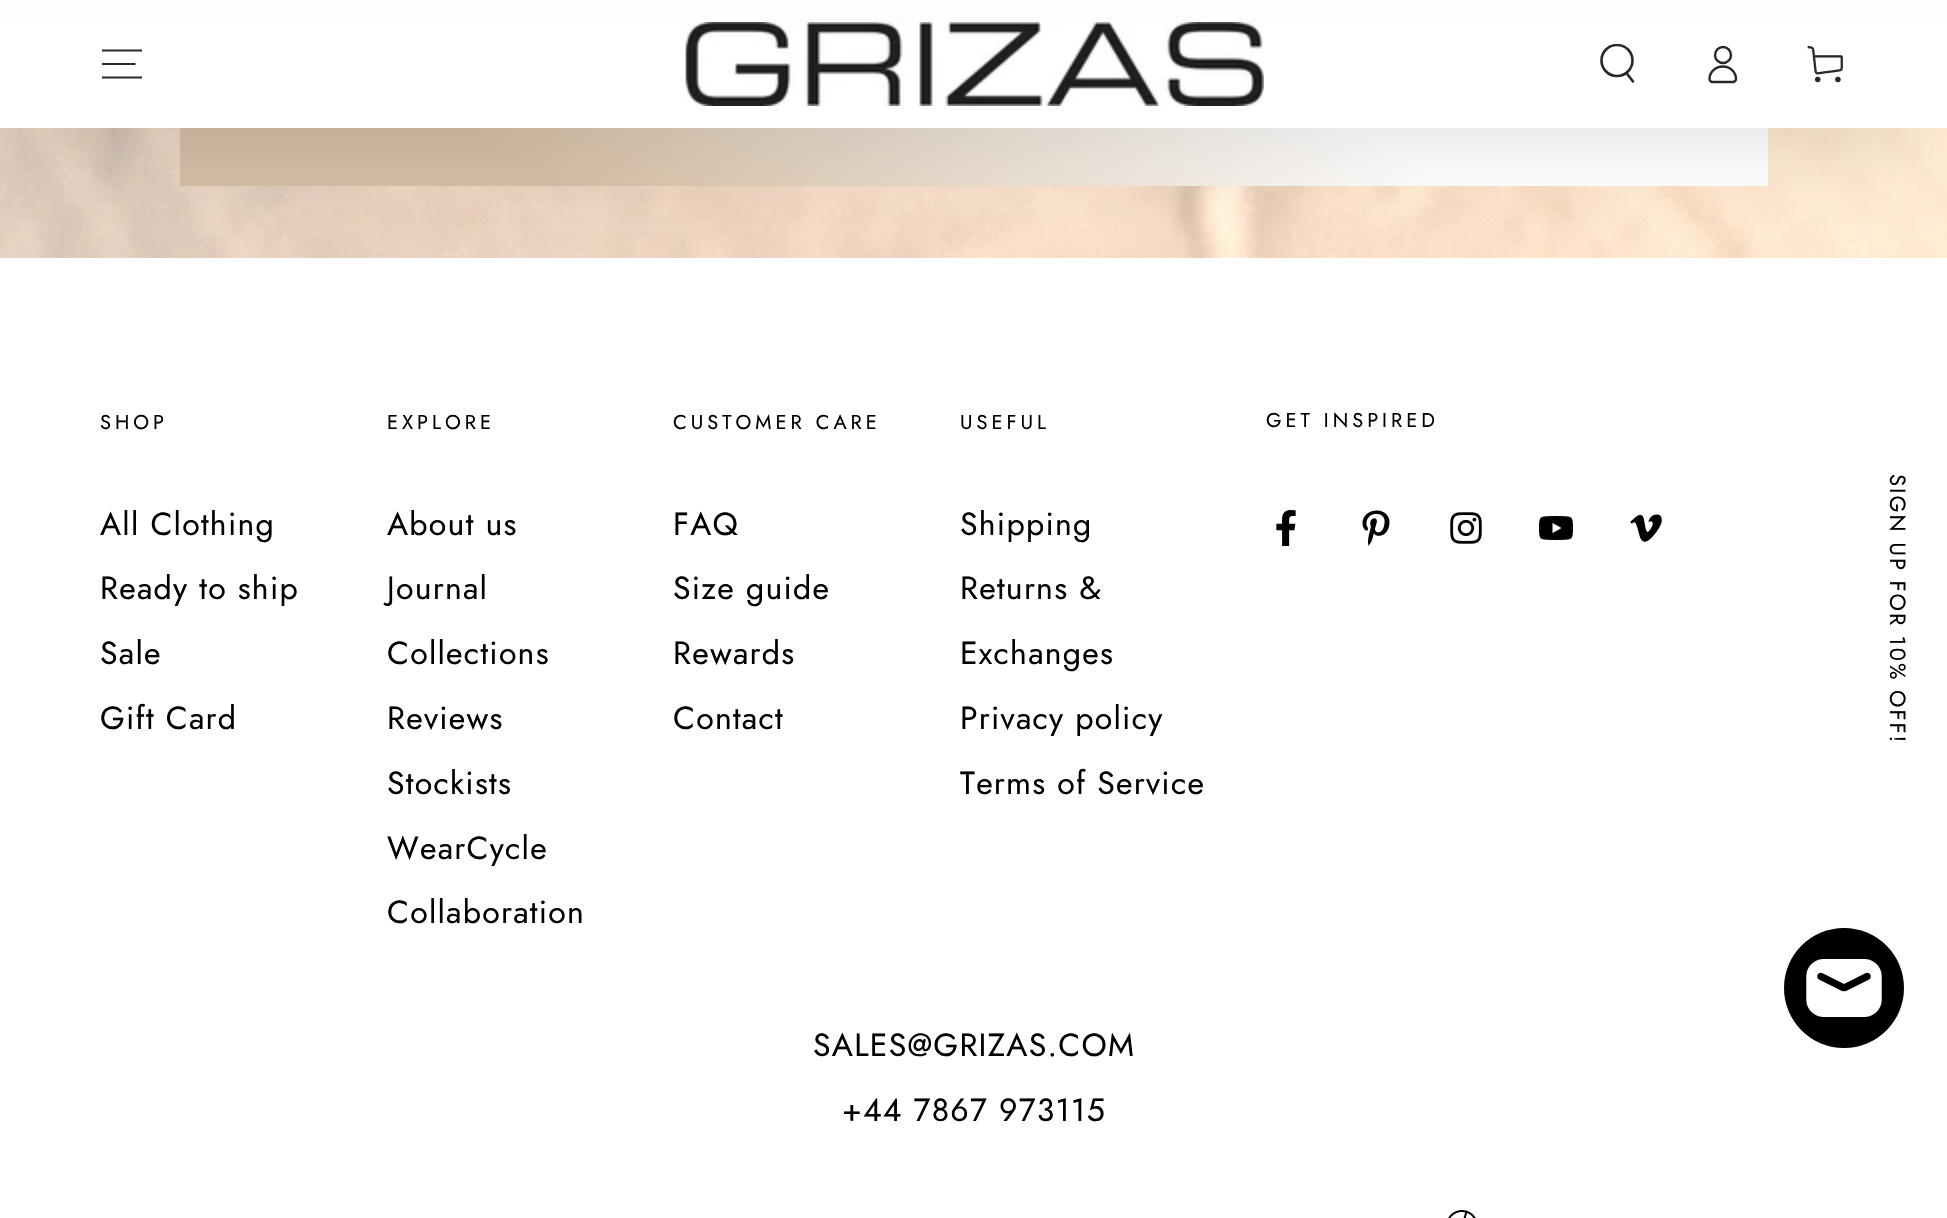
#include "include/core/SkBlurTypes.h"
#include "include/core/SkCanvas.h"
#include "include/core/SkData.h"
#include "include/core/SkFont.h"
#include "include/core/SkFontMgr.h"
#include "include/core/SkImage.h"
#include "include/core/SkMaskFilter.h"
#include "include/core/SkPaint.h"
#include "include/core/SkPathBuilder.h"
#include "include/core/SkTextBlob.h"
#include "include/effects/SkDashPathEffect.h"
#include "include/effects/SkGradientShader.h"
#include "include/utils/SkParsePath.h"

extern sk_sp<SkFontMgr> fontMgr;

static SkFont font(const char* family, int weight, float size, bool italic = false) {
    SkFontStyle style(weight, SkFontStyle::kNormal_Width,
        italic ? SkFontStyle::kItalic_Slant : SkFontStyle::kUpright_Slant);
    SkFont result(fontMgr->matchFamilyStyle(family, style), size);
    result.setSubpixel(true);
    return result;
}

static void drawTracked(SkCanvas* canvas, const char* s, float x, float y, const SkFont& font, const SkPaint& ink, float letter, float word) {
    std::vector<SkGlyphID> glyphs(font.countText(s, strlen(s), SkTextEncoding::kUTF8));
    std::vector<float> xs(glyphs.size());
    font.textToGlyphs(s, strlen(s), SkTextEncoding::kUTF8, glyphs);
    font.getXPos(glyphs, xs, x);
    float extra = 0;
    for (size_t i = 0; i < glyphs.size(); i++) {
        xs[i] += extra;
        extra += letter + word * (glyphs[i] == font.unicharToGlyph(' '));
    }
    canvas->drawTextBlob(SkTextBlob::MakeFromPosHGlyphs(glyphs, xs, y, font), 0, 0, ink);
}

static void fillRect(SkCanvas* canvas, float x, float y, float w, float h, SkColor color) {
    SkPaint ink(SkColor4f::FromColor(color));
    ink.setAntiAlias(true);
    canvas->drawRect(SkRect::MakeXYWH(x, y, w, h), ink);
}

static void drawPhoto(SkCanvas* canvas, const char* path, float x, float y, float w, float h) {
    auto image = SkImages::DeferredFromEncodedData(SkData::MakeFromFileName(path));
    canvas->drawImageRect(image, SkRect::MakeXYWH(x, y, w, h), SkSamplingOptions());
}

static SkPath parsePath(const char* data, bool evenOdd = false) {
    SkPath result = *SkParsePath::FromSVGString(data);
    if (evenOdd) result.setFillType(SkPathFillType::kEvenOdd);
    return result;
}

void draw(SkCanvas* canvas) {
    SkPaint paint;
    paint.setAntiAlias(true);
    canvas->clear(0xFFFFFFFF);
    drawPhoto(canvas, "assets/img3.png", 0, 128, 1947, 130);
    {
        const SkColor colors[] = {0xFFD5BDA3, 0xFFFFFFFF, 0xFFFFFFFF};
        const float stops[] = {0.14f, 0.48f, 1};
        const SkPoint ends[] = {{641, 452}, {1307, -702}};
        paint.setShader(SkGradientShader::MakeLinear(ends, colors, stops, 3, SkTileMode::kClamp));
        paint.setAlpha(255);
    }
    canvas->drawRect(SkRect::MakeXYWH(180, 128, 1588, 58), paint);
    paint.setShader(nullptr);
    paint.setColor(0x33000000);
    paint.setMaskFilter(SkMaskFilter::MakeBlur(kNormal_SkBlurStyle, 40));
    canvas->drawRoundRect(SkRect::MakeXYWH(30, 88, 1888, 40), 20, 20, paint);
    paint.setMaskFilter(nullptr);
    fillRect(canvas, 0, 24, 1947, 104, 0xFFFFFFFF);
    drawPhoto(canvas, "assets/img1.png", 685, 22, 579, 84);
    paint.setStroke(true);
    paint.setStrokeWidth(2.2f);
    paint.setColor(0xFF282828);
    canvas->drawPath(parsePath("M102 77.5H142M102 64H135.5M102 50.5H142"), paint);
    canvas->save();
    canvas->clipRect(SkRect::MakeXYWH(1598, 44, 40, 40));
    paint.setStrokeWidth(2.6f);
    canvas->drawCircle(1617, 60.5f, 15.5f, paint);
    canvas->restore();
    paint.setStrokeCap(SkPaint::kRound_Cap);
    canvas->drawPath(parsePath("M1626.5 73L1633 81.5"), paint);
    paint.setStrokeWidth(2.4f);
    paint.setStrokeCap(SkPaint::kButt_Cap);
    canvas->drawPath(parsePath("M1723 66.5C1715.5 66.5 1709.5 72 1709.5 79C1709.5 80.5 1711 82 1712.5 82H1733C1734.5 82 1736 80.5 1736 79C1736 72 1730 66.5 1723 66.5Z"), paint);
    canvas->drawCircle(1723, 55, 8, paint);
    drawPhoto(canvas, "assets/img2.png", 1807, 46, 36, 37);
    SkFont font1 = font("Jost", 400, 20);
    paint.setStroke(false);
    paint.setColor(0xFF000000);
    drawTracked(canvas, "SHOP", 100, 429, font1, paint, 4, 0);
    SkFont font2 = font("Jost", 400, 32);
    drawTracked(canvas, "All Clothing", 100, 535, font2, paint, 1.25f, 0);
    drawTracked(canvas, "Ready to ship", 100, 599, font2, paint, 1.25f, 0);
    drawTracked(canvas, "Sale", 100, 664, font2, paint, 1.25f, 0);
    drawTracked(canvas, "Gift Card", 100, 729, font2, paint, 1.25f, 0);
    drawTracked(canvas, "EXPLORE", 387, 429, font1, paint, 4, 0);
    drawTracked(canvas, "About us", 387, 535, font2, paint, 1.25f, 0);
    drawTracked(canvas, "Journal", 387, 599, font2, paint, 1.25f, 0);
    drawTracked(canvas, "Collections", 387, 664, font2, paint, 1.25f, 0);
    drawTracked(canvas, "Reviews", 387, 729, font2, paint, 1.25f, 0);
    drawTracked(canvas, "Stockists", 387, 794, font2, paint, 1.25f, 0);
    drawTracked(canvas, "WearCycle", 387, 859, font2, paint, 1.25f, 0);
    drawTracked(canvas, "Collaboration", 387, 923, font2, paint, 1.25f, 0);
    drawTracked(canvas, "CUSTOMER CARE", 673, 429, font1, paint, 4, 0);
    drawTracked(canvas, "FAQ", 673, 535, font2, paint, 1.25f, 0);
    drawTracked(canvas, "Size guide", 673, 599, font2, paint, 1.25f, 0);
    drawTracked(canvas, "Rewards", 673, 664, font2, paint, 1.25f, 0);
    drawTracked(canvas, "Contact", 673, 729, font2, paint, 1.25f, 0);
    drawTracked(canvas, "USEFUL", 960, 429, font1, paint, 4, 0);
    drawTracked(canvas, "Shipping", 960, 535, font2, paint, 1.25f, 0);
    drawTracked(canvas, "Returns &", 960, 599, font2, paint, 1.25f, 0);
    drawTracked(canvas, "Exchanges", 960, 664, font2, paint, 1.25f, 0);
    drawTracked(canvas, "Privacy policy", 960, 729, font2, paint, 1.25f, 0);
    drawTracked(canvas, "Terms of Service", 960, 794, font2, paint, 1.25f, 0);
    drawTracked(canvas, "GET INSPIRED", 1266, 427, font1, paint, 4, 0);
    drawPhoto(canvas, "assets/img4.png", 1276, 510, 20, 36);
    drawPhoto(canvas, "assets/img5.png", 1362, 510, 28, 36);
    drawPhoto(canvas, "assets/img6.png", 1450, 512, 32, 32);
    drawPhoto(canvas, "assets/img7.png", 1538, 516, 36, 24);
    drawPhoto(canvas, "assets/img8.png", 1630, 514, 32, 28);
    drawTracked(canvas, "SALES@GRIZAS.COM", 813, 1056, font2, paint, 1.25f, 0);
    drawTracked(canvas, "+44 7867 973115", 842, 1121, font2, paint, 1.25f, 0);
    drawPhoto(canvas, "assets/img9.png", 1448, 1210, 28, 8);
    SkFont font3 = font("Jost", 400, 22);
    canvas->save();
    canvas->rotate(90, 1890, 474);
    drawTracked(canvas, "SIGN UP FOR 10% OFF!", 1890, 474, font3, paint, 2, 0);
    canvas->restore();
    canvas->drawCircle(1844, 988, 60, paint);
    drawPhoto(canvas, "assets/img10.png", 1806, 959, 76, 58);
}
